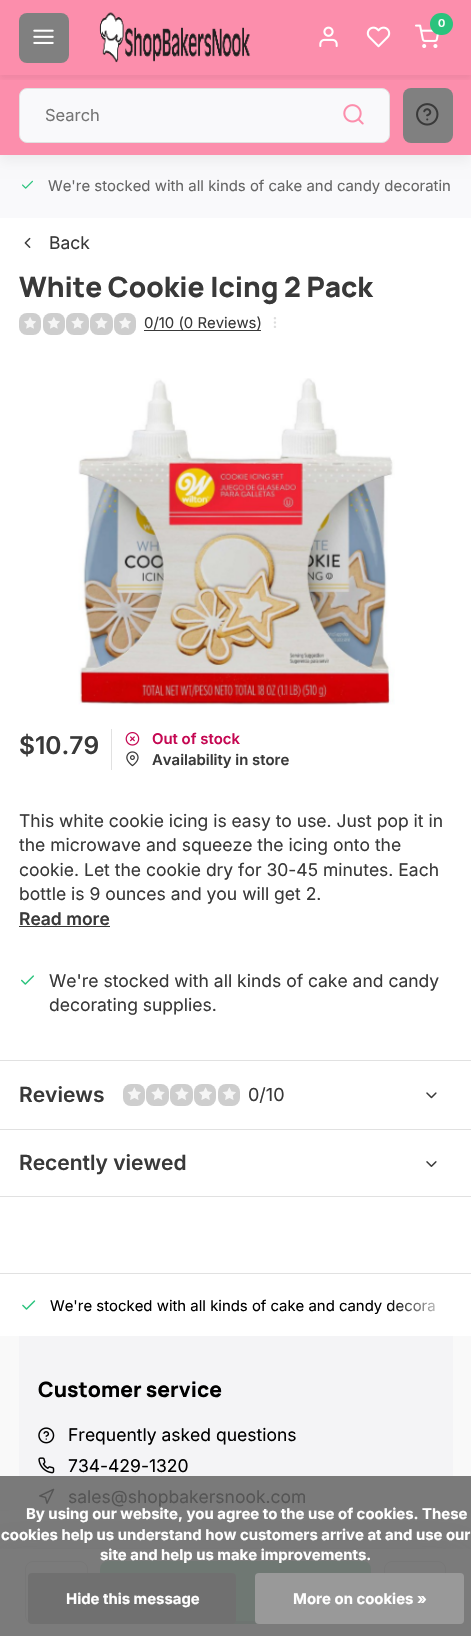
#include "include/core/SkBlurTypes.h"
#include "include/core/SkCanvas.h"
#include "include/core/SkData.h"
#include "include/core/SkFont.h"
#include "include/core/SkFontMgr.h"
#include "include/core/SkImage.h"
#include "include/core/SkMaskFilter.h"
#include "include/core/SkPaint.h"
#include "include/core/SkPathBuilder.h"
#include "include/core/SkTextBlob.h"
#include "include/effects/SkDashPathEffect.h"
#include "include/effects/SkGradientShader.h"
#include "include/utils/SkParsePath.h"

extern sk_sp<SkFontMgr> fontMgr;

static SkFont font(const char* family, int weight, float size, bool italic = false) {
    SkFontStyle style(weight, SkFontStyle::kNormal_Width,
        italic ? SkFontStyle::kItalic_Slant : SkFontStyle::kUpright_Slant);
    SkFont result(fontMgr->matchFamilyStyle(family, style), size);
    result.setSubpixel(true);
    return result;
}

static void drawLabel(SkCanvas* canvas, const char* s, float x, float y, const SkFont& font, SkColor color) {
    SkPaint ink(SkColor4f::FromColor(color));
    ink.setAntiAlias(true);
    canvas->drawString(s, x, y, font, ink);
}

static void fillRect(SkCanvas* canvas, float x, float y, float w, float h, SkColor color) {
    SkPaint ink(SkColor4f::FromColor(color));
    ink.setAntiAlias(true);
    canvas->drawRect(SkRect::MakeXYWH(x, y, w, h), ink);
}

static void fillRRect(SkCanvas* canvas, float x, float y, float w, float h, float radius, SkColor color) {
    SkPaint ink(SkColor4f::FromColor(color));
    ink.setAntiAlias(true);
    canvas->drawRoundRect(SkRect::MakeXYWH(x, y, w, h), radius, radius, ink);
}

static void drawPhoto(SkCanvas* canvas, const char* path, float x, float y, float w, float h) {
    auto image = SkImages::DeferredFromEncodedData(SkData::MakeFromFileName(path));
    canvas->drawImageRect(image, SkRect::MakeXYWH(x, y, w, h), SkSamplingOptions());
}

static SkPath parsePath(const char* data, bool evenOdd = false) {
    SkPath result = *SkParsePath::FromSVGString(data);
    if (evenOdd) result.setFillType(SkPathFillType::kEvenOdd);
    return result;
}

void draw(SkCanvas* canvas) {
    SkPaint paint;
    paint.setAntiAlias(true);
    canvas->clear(0xFFFFFFFF);
    fillRect(canvas, 0, 155, 471, 63, 0xFFF9F9FB);
    paint.setColor(0x0D000000);
    paint.setMaskFilter(SkMaskFilter::MakeBlur(kNormal_SkBlurStyle, 6));
    canvas->drawRect(SkRect::MakeXYWH(0, 6, 471, 155), paint);
    paint.setMaskFilter(nullptr);
    fillRect(canvas, 0, 0, 471, 155, 0xFFFC8EAC);
    canvas->save();
    canvas->clipRect(SkRect::MakeXYWH(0, 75, 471, 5));
    paint.setMaskFilter(SkMaskFilter::MakeBlur(kNormal_SkBlurStyle, 2.5f));
    canvas->drawRect(SkRect::MakeXYWH(0, 4, 471, 75), paint);
    paint.setMaskFilter(nullptr);
    canvas->restore();
    fillRRect(canvas, 19, 13, 50, 50, 8, 0xFF808080);
    drawPhoto(canvas, "assets/img1.png", 33, 29, 21, 15);
    drawPhoto(canvas, "assets/img2.png", 99, 12, 152, 51);
    drawPhoto(canvas, "assets/img3.png", 415, 24, 24, 24);
    fillRRect(canvas, 430, 13, 23, 22, 11, 0xFF2AC37D);
    SkFont font1 = font("Inter", 600, 11);
    drawLabel(canvas, "0", 438, 27, font1, 0xFFFFFFFF);
    drawPhoto(canvas, "assets/img4.png", 319, 26, 19, 21);
    drawPhoto(canvas, "assets/img5.png", 366, 26, 25, 22);
    paint.setColor(0xFFF9F9FB);
    canvas->drawRoundRect(SkRect::MakeXYWH(19.5f, 88.5f, 370, 54), 7.5f, 7.5f, paint);
    paint.setStroke(true);
    paint.setStrokeWidth(1);
    paint.setColor(0xFFE1E1E1);
    canvas->drawRoundRect(SkRect::MakeXYWH(19.5f, 88.5f, 370, 54), 7.5f, 7.5f, paint);
    SkFont font2 = font("Inter", 400, 16.5f);
    drawLabel(canvas, "Search", 45, 121, font2, 0xFF757575);
    drawPhoto(canvas, "assets/img6.png", 343, 104, 21, 21);
    fillRRect(canvas, 403, 88, 50, 55, 8, 0xFF808080);
    drawPhoto(canvas, "assets/img7.png", 416, 103, 23, 23);
    drawPhoto(canvas, "assets/img8.png", 22, 180, 11, 9);
    SkFont font3 = font("Inter", 400, 14.9f);
    drawLabel(canvas, "We're stocked with all kinds of cake and candy decoratin", 48, 191, font3, 0xFF666666);
    fillRect(canvas, 0, 1060, 471, 1, 0xFFE1E1E1);
    drawPhoto(canvas, "assets/img9.png", 24, 237, 7, 11);
    SkFont font4 = font("Inter", 400, 17.5f);
    drawLabel(canvas, "Back", 49, 249, font4, 0xFF393939);
    SkFont font5 = font("Manrope", 200, 28);
    drawLabel(canvas, "White Cookie Icing 2 Pack", 19, 297, font5, 0xFF393939);
    fillRRect(canvas, 19, 313, 22, 22, 8, 0xFFCECECE);
    drawPhoto(canvas, "assets/img10.png", 24, 317, 12, 12);
    fillRRect(canvas, 43, 313, 22, 22, 8, 0xFFCECECE);
    drawPhoto(canvas, "assets/img11.png", 47, 317, 13, 12);
    fillRRect(canvas, 66, 313, 23, 22, 8, 0xFFCECECE);
    drawPhoto(canvas, "assets/img12.png", 71, 317, 13, 12);
    fillRRect(canvas, 90, 313, 23, 22, 8, 0xFFCECECE);
    drawPhoto(canvas, "assets/img13.png", 95, 317, 13, 12);
    fillRRect(canvas, 114, 313, 22, 22, 8, 0xFFCECECE);
    drawPhoto(canvas, "assets/img10.png", 119, 317, 12, 12);
    drawLabel(canvas, "0/10 (0 Reviews)", 144, 328, font3, 0xFF393939);
    fillRect(canvas, 144, 330, 117, 1, 0xFF393939);
    drawPhoto(canvas, "assets/img14.png", 273, 317, 4, 11);
    drawPhoto(canvas, "assets/img15.png", 78, 378, 317, 327);
    fillRect(canvas, 111, 729, 1, 41, 0xFFE1E1E1);
    SkFont font6 = font("Inter", 600, 24.5f);
    drawLabel(canvas, "$10.79", 19, 754, font6, 0xFF393939);
    drawPhoto(canvas, "assets/img16.png", 125, 732, 15, 14);
    SkFont font7 = font("Inter", 600, 14.9f);
    drawLabel(canvas, "Out of stock", 152, 744, font7, 0xFFC50852);
    drawPhoto(canvas, "assets/img17.png", 126, 751, 13, 16);
    drawLabel(canvas, "Availability in store", 152, 765, font7, 0xFF393939);
    drawLabel(canvas, "This white cookie icing is easy to use. Just pop it in", 19, 827, font4, 0xFF393939);
    drawLabel(canvas, "the microwave and squeeze the icing onto the", 19, 851, font4, 0xFF393939);
    drawLabel(canvas, "cookie. Let the cookie dry for 30-45 minutes. Each", 19, 876, font4, 0xFF393939);
    drawLabel(canvas, "bottle is 9 ounces and you will get 2.", 19, 900, font4, 0xFF393939);
    SkFont font8 = font("Inter", 600, 17.5f);
    drawLabel(canvas, "Read more", 19, 925, font8, 0xFF393939);
    fillRect(canvas, 19, 926, 91, 1, 0xFF393939);
    fillRect(canvas, 0, 1476, 471, 73, 0xFF7A7A7A);
    drawPhoto(canvas, "assets/img28.png", 39, 1488, 16, 16);
    paint.setStroke(false);
    paint.setColor(0x26555555);
    paint.setMaskFilter(SkMaskFilter::MakeBlur(kNormal_SkBlurStyle, 19));
    canvas->drawRect(SkRect::MakeXYWH(-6, 1556, 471, 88), paint);
    paint.setMaskFilter(nullptr);
    fillRect(canvas, 0, 1549, 471, 87, 0xFF7B7B7B);
    paint.setStroke(true);
    paint.setColor(0xFF777777);
    canvas->drawRoundRect(SkRect::MakeXYWH(25.5f, 1561.5f, 62, 62), 7.5f, 7.5f, paint);
    fillRRect(canvas, 100, 1561, 271, 63, 8, 0xFF6F7873);
    paint.setStroke(false);
    paint.setColor(0xFF6E7471);
    canvas->drawPath(parsePath("M100 1614V1616C100 1620 104 1624 108 1624H363C367 1624 371 1620 371 1616V1614C371 1618 368 1621 364 1621H108C103 1621 100 1618 100 1614Z"), paint);
    paint.setStroke(true);
    paint.setColor(0xFF777777);
    canvas->drawRoundRect(SkRect::MakeXYWH(384.5f, 1561.5f, 61, 62), 7.5f, 7.5f, paint);
    drawPhoto(canvas, "assets/img18.png", 21, 975, 13, 10);
    drawLabel(canvas, "We're stocked with all kinds of cake and candy", 49, 987, font4, 0xFF393939);
    drawLabel(canvas, "decorating supplies.", 49, 1011, font4, 0xFF393939);
    fillRect(canvas, 0, 1129, 471, 1, 0xFFE1E1E1);
    SkFont font9 = font("Inter", 600, 21);
    drawLabel(canvas, "Reviews", 19, 1102, font9, 0xFF393939);
    fillRRect(canvas, 123, 1084, 22, 22, 8, 0xFFCECECE);
    drawPhoto(canvas, "assets/img19.png", 127, 1087, 14, 13);
    fillRRect(canvas, 146, 1084, 23, 22, 8, 0xFFCECECE);
    drawPhoto(canvas, "assets/img20.png", 151, 1087, 14, 13);
    fillRRect(canvas, 170, 1084, 23, 22, 8, 0xFFCECECE);
    drawPhoto(canvas, "assets/img21.png", 175, 1087, 14, 13);
    fillRRect(canvas, 194, 1084, 22, 22, 8, 0xFFCECECE);
    drawPhoto(canvas, "assets/img22.png", 199, 1087, 13, 13);
    fillRRect(canvas, 218, 1084, 22, 22, 8, 0xFFCECECE);
    drawPhoto(canvas, "assets/img19.png", 222, 1087, 14, 13);
    SkFont font10 = font("Inter", 400, 18);
    drawLabel(canvas, "0/10", 248, 1101, font10, 0xFF393939);
    drawPhoto(canvas, "assets/img23.png", 426, 1092, 11, 7);
    fillRect(canvas, 0, 1196, 471, 1, 0xFFE1E1E1);
    drawLabel(canvas, "Recently viewed", 19, 1170, font9, 0xFF393939);
    drawPhoto(canvas, "assets/img24.png", 426, 1161, 11, 6);
    fillRect(canvas, 0, 1273, 471, 1, 0xFFE1E1E1);
    drawPhoto(canvas, "assets/img25.png", 22, 1300, 14, 10);
    drawLabel(canvas, "We're stocked with all kinds of cake and candy decora", 50, 1311, font3, 0xFF000000);
    paint.setStroke(false);
    {
        const SkColor colors[] = {0x00FFFFFF, 0xFFFFFFFF};
        const float stops[] = {0, 1};
        const SkPoint ends[] = {{388, 1305}, {453, 1305}};
        paint.setShader(SkGradientShader::MakeLinear(ends, colors, stops, 2, SkTileMode::kClamp));
        paint.setAlpha(255);
    }
    canvas->drawRect(SkRect::MakeXYWH(389, 1300, 46, 12), paint);
    fillRect(canvas, 0, 1336, 471, 140, 0xFFF9F9F9);
    fillRect(canvas, 19, 1336, 434, 140, 0xFFF4F4F6);
    SkFont font11 = font("Manrope", 200, 21);
    drawLabel(canvas, "Customer service", 38, 1397, font11, 0xFF000000);
    drawPhoto(canvas, "assets/img26.png", 38, 1427, 17, 17);
    drawLabel(canvas, "Frequently asked questions", 68, 1441, font4, 0xFF000000);
    drawPhoto(canvas, "assets/img27.png", 38, 1457, 17, 17);
    drawLabel(canvas, "734-429-1320", 68, 1472, font4, 0xFF000000);
    drawLabel(canvas, "sales@shopbakersnook.com", 68, 1503, font4, 0xFF555555);
    SkFont font12 = font("Inter", 700, 14.9f);
    drawLabel(canvas, "By using our website, you agree to the use of cookies. These", 26, 1519, font12, 0xFFFFFFFF);
    drawLabel(canvas, "cookies help us understand how customers arrive at and use our", 1, 1540, font12, 0xFFFFFFFF);
    drawLabel(canvas, "site and help us make improvements.", 100, 1560, font12, 0xFFFFFFFF);
    fillRRect(canvas, 28, 1573, 208, 51, 4, 0xFF707070);
    drawLabel(canvas, "Hide this message", 66, 1604, font12, 0xFFFFFFFF);
    fillRRect(canvas, 255, 1573, 209, 51, 4, 0xFF999999);
    drawLabel(canvas, "More on cookies »", 293, 1604, font12, 0xFFFFFFFF);
}
